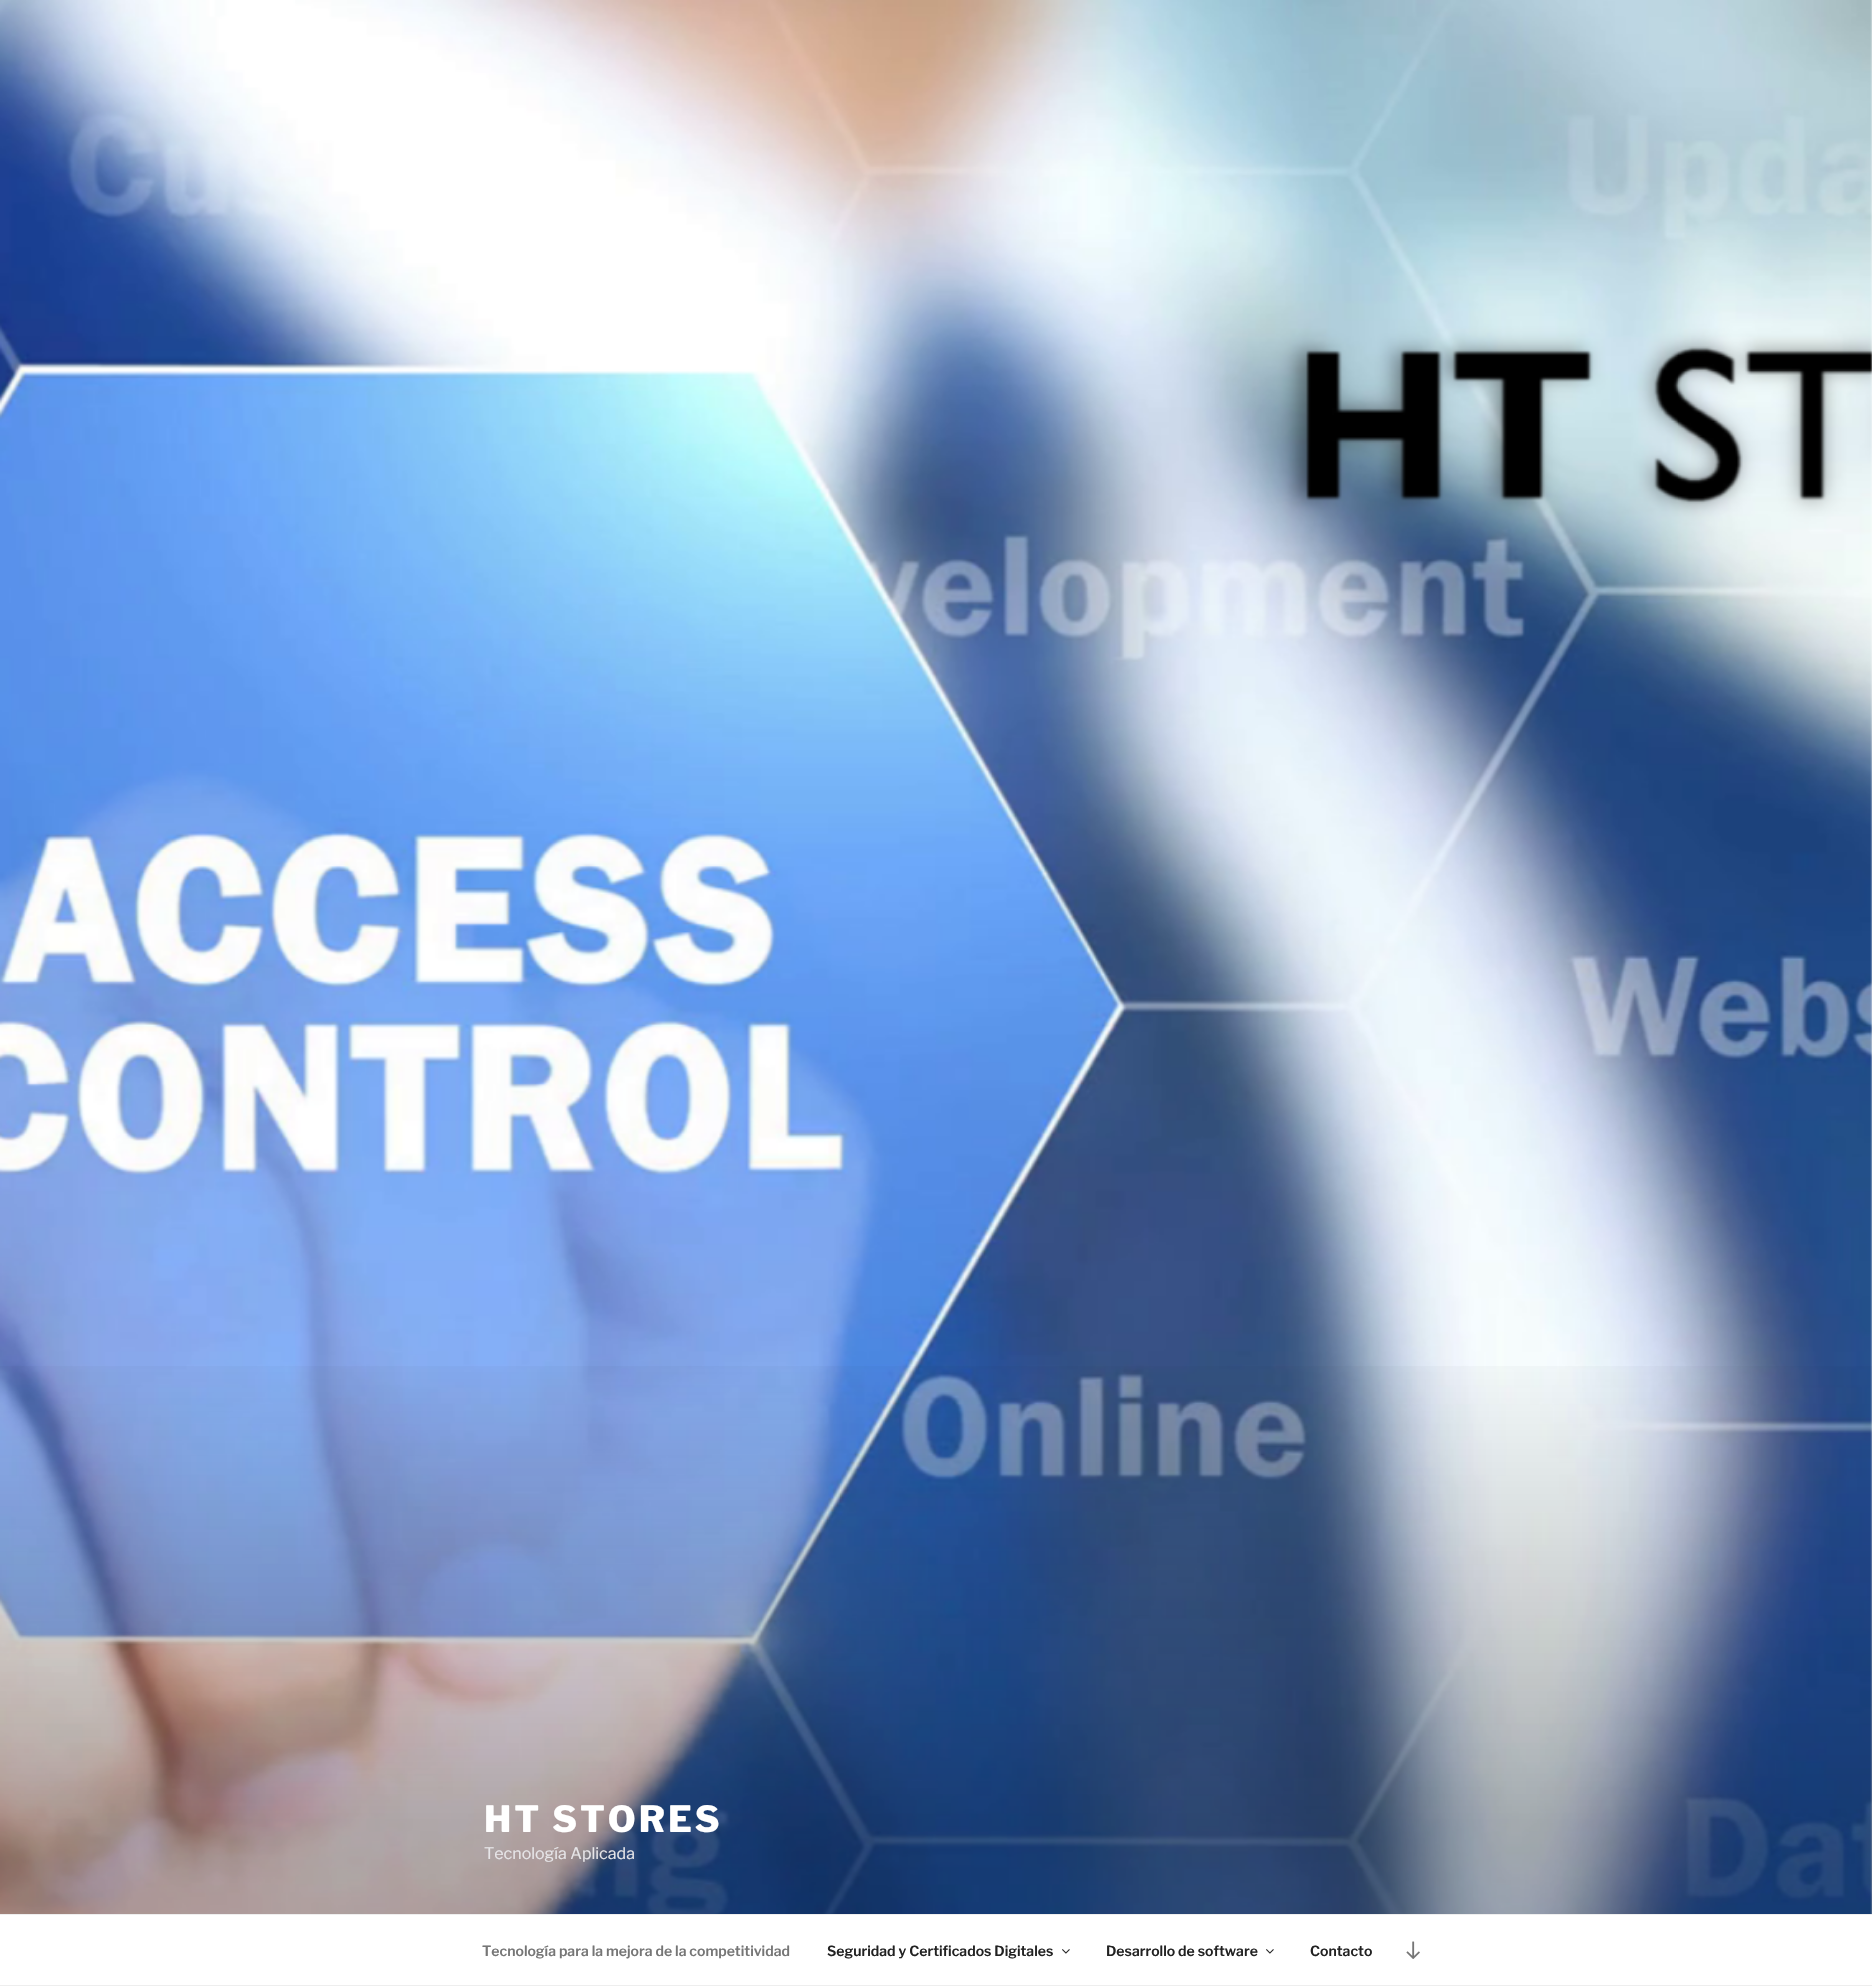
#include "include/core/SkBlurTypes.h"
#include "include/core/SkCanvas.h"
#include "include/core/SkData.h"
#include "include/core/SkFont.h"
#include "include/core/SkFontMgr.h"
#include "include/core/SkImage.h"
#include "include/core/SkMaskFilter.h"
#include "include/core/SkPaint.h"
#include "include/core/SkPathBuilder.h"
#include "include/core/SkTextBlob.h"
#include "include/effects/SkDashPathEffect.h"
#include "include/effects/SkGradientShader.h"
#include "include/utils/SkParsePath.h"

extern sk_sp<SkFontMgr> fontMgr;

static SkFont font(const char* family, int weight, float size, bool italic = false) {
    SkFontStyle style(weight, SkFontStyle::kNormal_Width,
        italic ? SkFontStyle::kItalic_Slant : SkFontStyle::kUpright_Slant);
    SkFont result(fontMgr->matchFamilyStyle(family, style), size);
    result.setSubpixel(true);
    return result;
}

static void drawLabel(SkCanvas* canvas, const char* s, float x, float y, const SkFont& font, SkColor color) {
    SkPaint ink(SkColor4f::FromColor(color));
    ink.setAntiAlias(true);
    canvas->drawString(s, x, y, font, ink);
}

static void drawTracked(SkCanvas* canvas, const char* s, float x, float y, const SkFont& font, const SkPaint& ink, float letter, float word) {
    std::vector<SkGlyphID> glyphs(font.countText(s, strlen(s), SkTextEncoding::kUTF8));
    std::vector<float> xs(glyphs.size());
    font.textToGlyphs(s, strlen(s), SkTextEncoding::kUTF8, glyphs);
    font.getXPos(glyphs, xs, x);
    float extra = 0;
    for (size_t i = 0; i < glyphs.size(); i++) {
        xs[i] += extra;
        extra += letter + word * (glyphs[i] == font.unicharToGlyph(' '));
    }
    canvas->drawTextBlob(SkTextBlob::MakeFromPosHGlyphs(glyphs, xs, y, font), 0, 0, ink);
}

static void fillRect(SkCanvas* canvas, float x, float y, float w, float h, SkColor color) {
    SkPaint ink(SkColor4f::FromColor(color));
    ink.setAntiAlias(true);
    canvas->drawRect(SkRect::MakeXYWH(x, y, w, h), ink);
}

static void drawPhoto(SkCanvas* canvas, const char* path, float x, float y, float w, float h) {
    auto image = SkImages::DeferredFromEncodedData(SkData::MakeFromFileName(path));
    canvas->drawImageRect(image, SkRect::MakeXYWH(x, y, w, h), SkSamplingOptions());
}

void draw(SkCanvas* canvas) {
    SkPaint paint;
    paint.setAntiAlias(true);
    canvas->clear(0xFFFAFAFA);
    drawPhoto(canvas, "assets/img1.png", 0, 0, 1872, 1914);
    {
        const SkColor colors[] = {0x00000000, 0x4D000000, 0x4D000000};
        const float stops[] = {0, 0.75f, 1};
        const SkPoint ends[] = {{936, 1331}, {936, 1986}};
        paint.setShader(SkGradientShader::MakeLinear(ends, colors, stops, 3, SkTileMode::kClamp));
        paint.setAlpha(255);
    }
    canvas->drawRect(SkRect::MakeXYWH(0, 1366, 1872, 548), paint);
    SkFont font1 = font("Libre Franklin", 800, 36);
    paint.setShader(nullptr);
    paint.setColor(0xFFFFFFFF);
    drawTracked(canvas, "HT STORES", 484, 1832, font1, paint, 2.9f, 0);
    SkFont font2 = font("Libre Franklin", 400, 16);
    drawLabel(canvas, "Tecnología Aplicada", 484, 1859, font2, 0xFFE7E6E9);
    fillRect(canvas, 0, 1915, 1872, 70, 0xFFFFFFFF);
    fillRect(canvas, 0, 1914, 1872, 1, 0xFFEEEEEE);
    fillRect(canvas, 0, 1985, 1872, 1, 0xFFEEEEEE);
    SkFont font3 = font("Libre Franklin", 600, 14);
    drawLabel(canvas, "Tecnología para la mejora de la competitividad", 482, 1956, font3, 0xFF767676);
    drawLabel(canvas, "Seguridad y Certificados Digitales", 827, 1956, font3, 0xFF222222);
    drawPhoto(canvas, "assets/img2.png", 1062, 1949, 8, 5);
    drawLabel(canvas, "Desarrollo de software", 1106, 1956, font3, 0xFF222222);
    drawPhoto(canvas, "assets/img2.png", 1266, 1949, 8, 5);
    drawLabel(canvas, "Contacto", 1310, 1956, font3, 0xFF222222);
    drawPhoto(canvas, "assets/img3.png", 1406, 1941, 14, 18);
}
